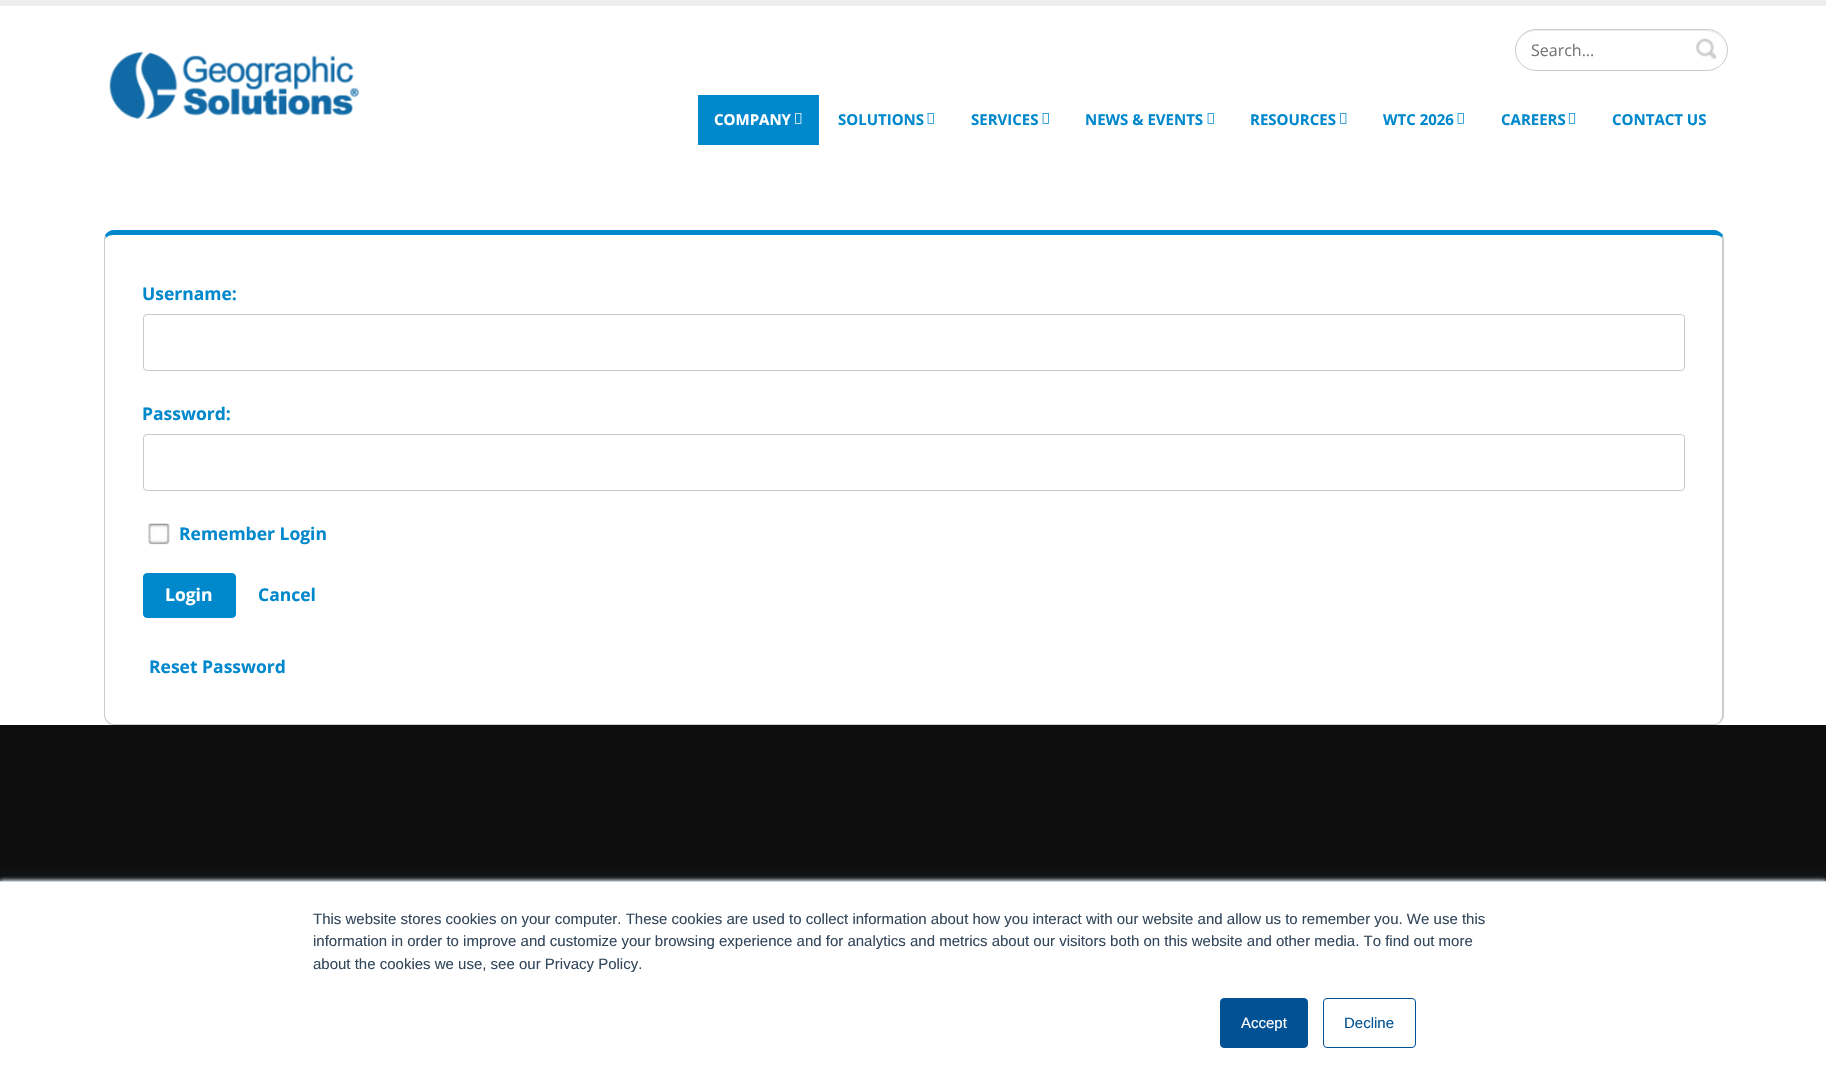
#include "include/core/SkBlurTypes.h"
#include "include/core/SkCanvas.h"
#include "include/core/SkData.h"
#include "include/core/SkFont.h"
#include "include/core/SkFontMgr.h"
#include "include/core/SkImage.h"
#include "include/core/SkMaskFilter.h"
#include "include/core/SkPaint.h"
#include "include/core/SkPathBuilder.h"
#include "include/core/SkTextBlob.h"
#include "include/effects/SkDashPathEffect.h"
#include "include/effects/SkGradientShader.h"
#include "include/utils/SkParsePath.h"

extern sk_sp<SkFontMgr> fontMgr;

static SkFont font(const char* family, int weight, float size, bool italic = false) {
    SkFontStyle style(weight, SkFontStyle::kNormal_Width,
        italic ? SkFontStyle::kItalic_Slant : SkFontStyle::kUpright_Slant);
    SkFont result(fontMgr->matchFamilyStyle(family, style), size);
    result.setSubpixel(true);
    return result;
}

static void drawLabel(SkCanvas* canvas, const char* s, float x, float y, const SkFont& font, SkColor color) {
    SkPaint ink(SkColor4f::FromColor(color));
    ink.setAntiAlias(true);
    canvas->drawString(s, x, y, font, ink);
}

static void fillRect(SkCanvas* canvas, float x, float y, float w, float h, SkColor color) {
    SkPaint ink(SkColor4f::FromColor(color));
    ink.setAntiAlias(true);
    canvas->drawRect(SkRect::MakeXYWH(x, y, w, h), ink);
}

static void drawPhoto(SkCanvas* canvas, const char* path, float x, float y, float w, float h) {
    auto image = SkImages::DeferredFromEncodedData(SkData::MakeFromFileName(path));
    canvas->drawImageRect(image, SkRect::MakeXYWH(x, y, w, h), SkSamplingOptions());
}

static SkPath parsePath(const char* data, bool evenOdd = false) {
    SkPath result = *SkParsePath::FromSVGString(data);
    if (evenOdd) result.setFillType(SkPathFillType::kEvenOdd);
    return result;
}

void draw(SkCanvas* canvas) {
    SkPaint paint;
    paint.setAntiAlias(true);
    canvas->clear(0xFFFFFFFF);
    fillRect(canvas, 0, 0, 1826, 6, 0xFFEDEDED);
    drawPhoto(canvas, "assets/img1.png", 109, 51, 250, 68);
    paint.setColor(0xFFECECEC);
    canvas->drawPath(parsePath("M1536 31H1706C1717 31 1726 40 1726 51V50C1726 39 1717 30 1706 30H1536C1525 30 1516 39 1516 50V51C1516 40 1525 31 1536 31Z"), paint);
    paint.setStroke(true);
    paint.setStrokeWidth(1);
    paint.setColor(0xFFCCCCCC);
    canvas->drawRoundRect(SkRect::MakeXYWH(1515.5f, 29.5f, 212, 41), 20.5f, 20.5f, paint);
    SkFont font1 = font("Open Sans", 400, 16);
    drawLabel(canvas, "Search...", 1531, 56, font1, 0xFF757575);
    drawPhoto(canvas, "assets/img2.png", 1696, 38, 21, 21);
    fillRect(canvas, 698, 95, 121, 50, 0xFF0088CC);
    SkFont font2 = font("Open Sans", 700, 15);
    drawLabel(canvas, "COMPANY", 714, 125, font2, 0xFFFFFFFF);
    drawPhoto(canvas, "assets/img3.png", 795, 113, 7, 11);
    drawLabel(canvas, "SOLUTIONS", 838, 125, font2, 0xFF0088CC);
    drawPhoto(canvas, "assets/img4.png", 927, 113, 7, 11);
    drawLabel(canvas, "SERVICES", 971, 125, font2, 0xFF0088CC);
    drawPhoto(canvas, "assets/img4.png", 1042, 113, 7, 11);
    drawLabel(canvas, "NEWS & EVENTS", 1085, 125, font2, 0xFF0088CC);
    drawPhoto(canvas, "assets/img4.png", 1207, 113, 7, 11);
    drawLabel(canvas, "RESOURCES", 1250, 125, font2, 0xFF0088CC);
    drawPhoto(canvas, "assets/img5.png", 1340, 113, 7, 11);
    drawLabel(canvas, "WTC 2026", 1383, 125, font2, 0xFF0088CC);
    drawPhoto(canvas, "assets/img4.png", 1457, 113, 7, 11);
    drawLabel(canvas, "CAREERS", 1501, 125, font2, 0xFF0088CC);
    drawPhoto(canvas, "assets/img6.png", 1568, 113, 8, 11);
    drawLabel(canvas, "CONTACT US", 1612, 125, font2, 0xFF0088CC);
    paint.setStroke(false);
    paint.setColor(0xFF0088CC);
    canvas->drawPath(parsePath("M114 230C110 230 107 232 105 235L106 238C107 236 110 235 114 235H1714C1718 235 1721 236 1722 238L1723 235C1721 232 1717 230 1714 230Z"), paint);
    paint.setColor(0xFFCCCCCC);
    canvas->drawPath(parsePath("M1724 717C1723 719 1722 721 1721 722L1720 721C1721 719 1722 717 1722 715V238L1723 235L1724 238Z"), paint);
    canvas->drawPath(parsePath("M114 725H1714C1717 725 1719 724 1721 722L1720 721C1719 723 1717 724 1714 724H114C111 724 109 723 108 721L107 722C108 724 111 725 114 725Z"), paint);
    canvas->drawPath(parsePath("M105 235C104 237 104 238 104 240V715C104 718 105 720 107 722L108 721C106 720 105 717 105 715V240L106 238Z"), paint);
    SkFont font3 = font("Open Sans", 700, 17.5f);
    drawLabel(canvas, "Username:", 142, 300, font3, 0xFF0088CC);
    paint.setStroke(true);
    paint.setColor(0xFFC9C9C9);
    canvas->drawRoundRect(SkRect::MakeXYWH(143.5f, 314.5f, 1541, 56), 3.5f, 3.5f, paint);
    drawLabel(canvas, "Password:", 142, 420, font3, 0xFF0088CC);
    canvas->drawRoundRect(SkRect::MakeXYWH(143.5f, 434.5f, 1541, 56), 3.5f, 3.5f, paint);
    drawPhoto(canvas, "assets/img7.png", 148, 523, 22, 22);
    drawLabel(canvas, "Remember Login", 179, 540, font3, 0xFF0088CC);
    paint.setStroke(false);
    paint.setColor(0xFF0088CC);
    canvas->drawRoundRect(SkRect::MakeXYWH(143.5f, 573.5f, 92, 44), 3.5f, 3.5f, paint);
    paint.setStroke(true);
    canvas->drawRoundRect(SkRect::MakeXYWH(143.5f, 573.5f, 92, 44), 3.5f, 3.5f, paint);
    drawLabel(canvas, "Login", 165, 601, font3, 0xFFFFFFFF);
    drawLabel(canvas, "Cancel", 258, 601, font3, 0xFF0088CC);
    drawLabel(canvas, "Reset Password", 149, 673, font3, 0xFF0088CC);
    fillRect(canvas, 0, 725, 1826, 143, 0xFF0E0E0E);
    fillRect(canvas, 0, 873, 1826, 8, 0xFF0E1114);
    fillRect(canvas, 0, 868, 1826, 5, 0xFF0F1011);
    paint.setStroke(false);
    paint.setColor(0xFFEAF0F6);
    paint.setMaskFilter(SkMaskFilter::MakeBlur(kNormal_SkBlurStyle, 2));
    canvas->drawRect(SkRect::MakeXYWH(0, 880, 1826, 199), paint);
    paint.setMaskFilter(nullptr);
    fillRect(canvas, 0, 882, 1826, 197, 0xFFFFFFFF);
    fillRect(canvas, 0, 881, 1826, 1, 0xFFCBD6E2);
    SkFont font4 = font("Liberation Sans", 400, 15);
    drawLabel(canvas, "This website stores cookies on your computer. These cookies are used to collect information about how you interact with our website and allow us to remember you. We use this", 313, 924, font4, 0xFF33475B);
    drawLabel(canvas, "information in order to improve and customize your browsing experience and for analytics and metrics about our visitors both on this website and other media. To find out more", 313, 946, font4, 0xFF33475B);
    drawLabel(canvas, "about the cookies we use, see our Privacy Policy.", 313, 969, font4, 0xFF33475B);
    paint.setColor(0xFF005295);
    canvas->drawRoundRect(SkRect::MakeXYWH(1220.5f, 998.5f, 87, 49), 3.5f, 3.5f, paint);
    paint.setStroke(true);
    canvas->drawRoundRect(SkRect::MakeXYWH(1220.5f, 998.5f, 87, 49), 3.5f, 3.5f, paint);
    drawLabel(canvas, "Accept", 1241, 1028, font4, 0xFFFFFFFF);
    canvas->drawRoundRect(SkRect::MakeXYWH(1323.5f, 998.5f, 92, 49), 3.5f, 3.5f, paint);
    drawLabel(canvas, "Decline", 1344, 1028, font4, 0xFF005295);
}
